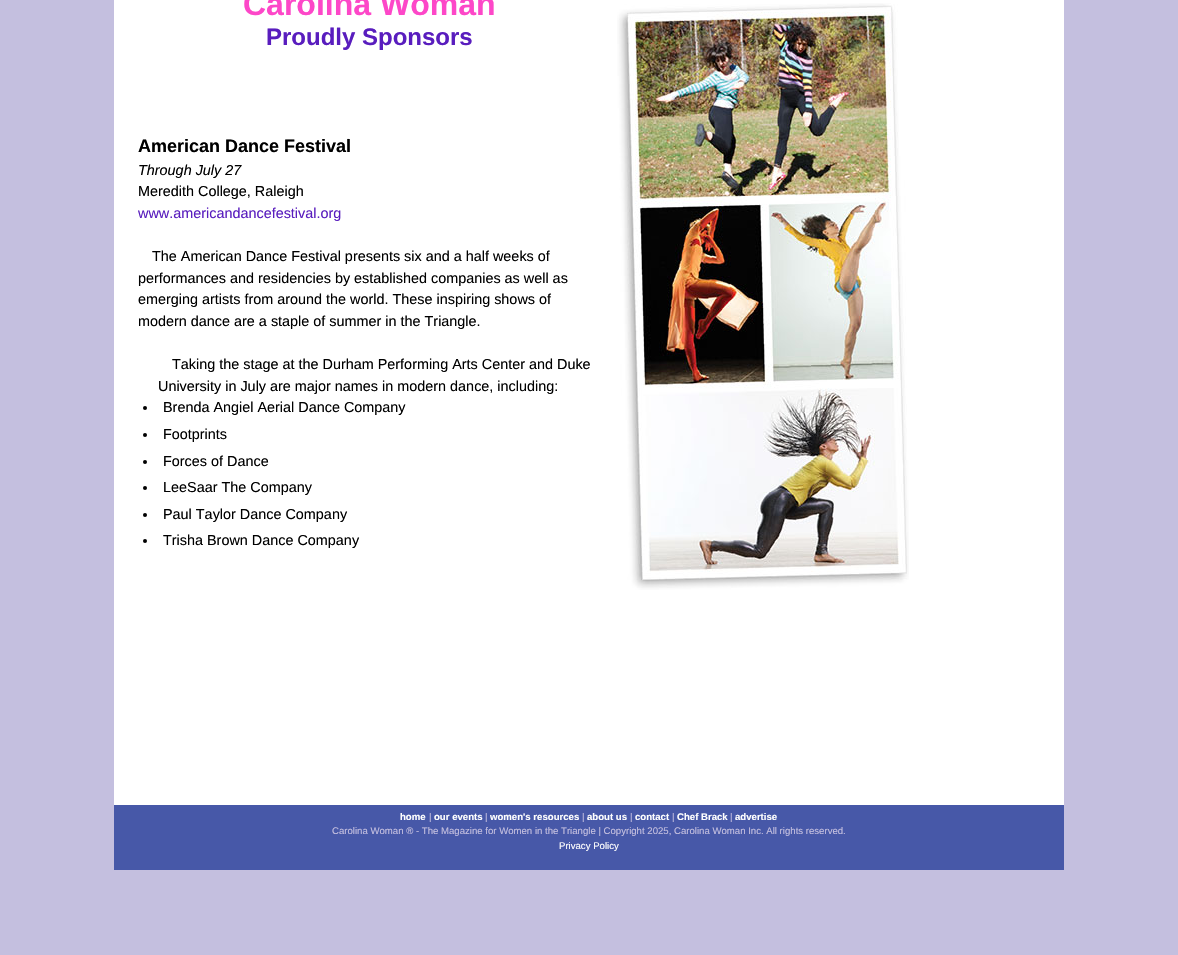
#include "include/core/SkBlurTypes.h"
#include "include/core/SkCanvas.h"
#include "include/core/SkData.h"
#include "include/core/SkFont.h"
#include "include/core/SkFontMgr.h"
#include "include/core/SkImage.h"
#include "include/core/SkMaskFilter.h"
#include "include/core/SkPaint.h"
#include "include/core/SkPathBuilder.h"
#include "include/core/SkTextBlob.h"
#include "include/effects/SkDashPathEffect.h"
#include "include/effects/SkGradientShader.h"
#include "include/utils/SkParsePath.h"

extern sk_sp<SkFontMgr> fontMgr;

static SkFont font(const char* family, int weight, float size, bool italic = false) {
    SkFontStyle style(weight, SkFontStyle::kNormal_Width,
        italic ? SkFontStyle::kItalic_Slant : SkFontStyle::kUpright_Slant);
    SkFont result(fontMgr->matchFamilyStyle(family, style), size);
    result.setSubpixel(true);
    return result;
}

static void drawLabel(SkCanvas* canvas, const char* s, float x, float y, const SkFont& font, SkColor color) {
    SkPaint ink(SkColor4f::FromColor(color));
    ink.setAntiAlias(true);
    canvas->drawString(s, x, y, font, ink);
}

static void fillRect(SkCanvas* canvas, float x, float y, float w, float h, SkColor color) {
    SkPaint ink(SkColor4f::FromColor(color));
    ink.setAntiAlias(true);
    canvas->drawRect(SkRect::MakeXYWH(x, y, w, h), ink);
}

static void drawPhoto(SkCanvas* canvas, const char* path, float x, float y, float w, float h) {
    auto image = SkImages::DeferredFromEncodedData(SkData::MakeFromFileName(path));
    canvas->drawImageRect(image, SkRect::MakeXYWH(x, y, w, h), SkSamplingOptions());
}

void draw(SkCanvas* canvas) {
    SkPaint paint;
    paint.setAntiAlias(true);
    canvas->clear(0xFFC4BFDF);
    fillRect(canvas, 114, 0, 950, 805, 0xFFFFFFFF);
    SkFont font1 = font("Liberation Sans", 700, 32);
    drawLabel(canvas, "Carolina Woman", 243, 15, font1, 0xFFFD47C8);
    drawPhoto(canvas, "assets/img1.png", 617, 3, 292, 587);
    SkFont font2 = font("Liberation Sans", 700, 24);
    drawLabel(canvas, "Proudly Sponsors", 266, 45, font2, 0xFF591DBE);
    SkFont font3 = font("Liberation Sans", 700, 18);
    drawLabel(canvas, "American Dance Festival", 138, 152, font3, 0xFF000000);
    SkFont font4 = font("Liberation Sans", 400, 14.4f, true);
    drawLabel(canvas, "Through July 27", 138, 175, font4, 0xFF000000);
    SkFont font5 = font("Liberation Sans", 400, 14.4f);
    drawLabel(canvas, "Meredith College, Raleigh", 138, 196, font5, 0xFF000000);
    drawLabel(canvas, "www.americandancefestival.org", 138, 218, font5, 0xFF591DBE);
    drawLabel(canvas, "The American Dance Festival presents six and a half weeks of", 152, 261, font5, 0xFF000000);
    drawLabel(canvas, "performances and residencies by established companies as well as", 138, 283, font5, 0xFF000000);
    drawLabel(canvas, "emerging artists from around the world. These inspiring shows of", 138, 304, font5, 0xFF000000);
    drawLabel(canvas, "modern dance are a staple of summer in the Triangle.", 138, 326, font5, 0xFF000000);
    drawLabel(canvas, "Taking the stage at the Durham Performing Arts Center and Duke", 172, 369, font5, 0xFF000000);
    drawLabel(canvas, "University in July are major names in modern dance, including:", 158, 391, font5, 0xFF000000);
    paint.setColor(0xFF000000);
    canvas->drawCircle(145, 408, 2, paint);
    drawLabel(canvas, "Brenda Angiel Aerial Dance Company", 163, 412, font5, 0xFF000000);
    canvas->drawCircle(145, 435, 2, paint);
    drawLabel(canvas, "Footprints", 163, 439, font5, 0xFF000000);
    canvas->drawCircle(145, 462, 2, paint);
    drawLabel(canvas, "Forces of Dance", 163, 466, font5, 0xFF000000);
    canvas->drawCircle(145, 488, 2, paint);
    drawLabel(canvas, "LeeSaar The Company", 163, 492, font5, 0xFF000000);
    canvas->drawCircle(145, 515, 2, paint);
    drawLabel(canvas, "Paul Taylor Dance Company", 163, 519, font5, 0xFF000000);
    canvas->drawCircle(145, 541, 2, paint);
    drawLabel(canvas, "Trisha Brown Dance Company", 163, 545, font5, 0xFF000000);
    fillRect(canvas, 114, 805, 950, 65, 0xFF4758A8);
    SkFont font6 = font("Liberation Sans", 700, 9.6f);
    drawLabel(canvas, "home", 400, 820, font6, 0xFFFFFFFF);
    SkFont font7 = font("Liberation Sans", 400, 9.6f);
    drawLabel(canvas, "|", 429, 820, font7, 0xFFC4BFDF);
    drawLabel(canvas, "our events", 434, 820, font6, 0xFFFFFFFF);
    drawLabel(canvas, "|", 485, 820, font7, 0xFFC4BFDF);
    drawLabel(canvas, "women's resources", 490, 820, font6, 0xFFFFFFFF);
    drawLabel(canvas, "|", 582, 820, font7, 0xFFC4BFDF);
    drawLabel(canvas, "about us", 587, 820, font6, 0xFFFFFFFF);
    drawLabel(canvas, "|", 630, 820, font7, 0xFFC4BFDF);
    drawLabel(canvas, "contact", 635, 820, font6, 0xFFFFFFFF);
    drawLabel(canvas, "|", 672, 820, font7, 0xFFC4BFDF);
    drawLabel(canvas, "Chef Brack", 677, 820, font6, 0xFFFFFFFF);
    drawLabel(canvas, "|", 730, 820, font7, 0xFFC4BFDF);
    drawLabel(canvas, "advertise", 735, 820, font6, 0xFFFFFFFF);
    drawLabel(canvas, "Carolina Woman ® - The Magazine for Women in the Triangle | Copyright 2025, Carolina Woman Inc. All rights reserved.", 332, 834, font7, 0xFFC4BFDF);
    drawLabel(canvas, "Privacy Policy", 559, 849, font7, 0xFFFFFFFF);
}
